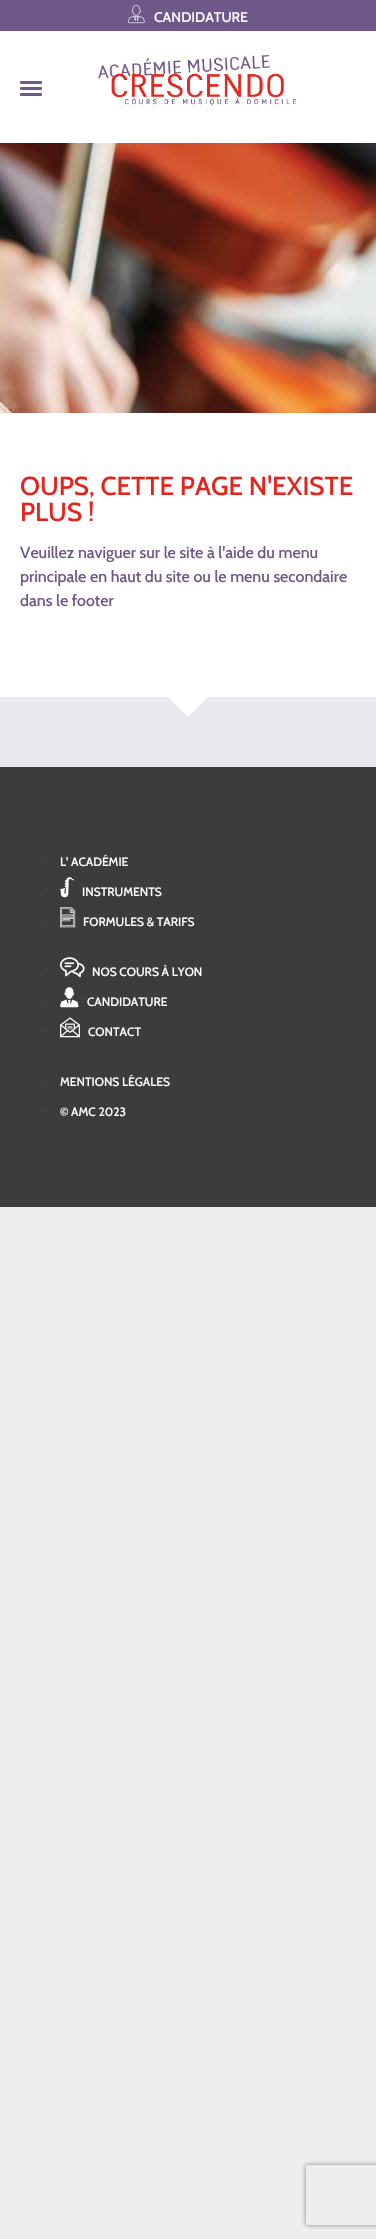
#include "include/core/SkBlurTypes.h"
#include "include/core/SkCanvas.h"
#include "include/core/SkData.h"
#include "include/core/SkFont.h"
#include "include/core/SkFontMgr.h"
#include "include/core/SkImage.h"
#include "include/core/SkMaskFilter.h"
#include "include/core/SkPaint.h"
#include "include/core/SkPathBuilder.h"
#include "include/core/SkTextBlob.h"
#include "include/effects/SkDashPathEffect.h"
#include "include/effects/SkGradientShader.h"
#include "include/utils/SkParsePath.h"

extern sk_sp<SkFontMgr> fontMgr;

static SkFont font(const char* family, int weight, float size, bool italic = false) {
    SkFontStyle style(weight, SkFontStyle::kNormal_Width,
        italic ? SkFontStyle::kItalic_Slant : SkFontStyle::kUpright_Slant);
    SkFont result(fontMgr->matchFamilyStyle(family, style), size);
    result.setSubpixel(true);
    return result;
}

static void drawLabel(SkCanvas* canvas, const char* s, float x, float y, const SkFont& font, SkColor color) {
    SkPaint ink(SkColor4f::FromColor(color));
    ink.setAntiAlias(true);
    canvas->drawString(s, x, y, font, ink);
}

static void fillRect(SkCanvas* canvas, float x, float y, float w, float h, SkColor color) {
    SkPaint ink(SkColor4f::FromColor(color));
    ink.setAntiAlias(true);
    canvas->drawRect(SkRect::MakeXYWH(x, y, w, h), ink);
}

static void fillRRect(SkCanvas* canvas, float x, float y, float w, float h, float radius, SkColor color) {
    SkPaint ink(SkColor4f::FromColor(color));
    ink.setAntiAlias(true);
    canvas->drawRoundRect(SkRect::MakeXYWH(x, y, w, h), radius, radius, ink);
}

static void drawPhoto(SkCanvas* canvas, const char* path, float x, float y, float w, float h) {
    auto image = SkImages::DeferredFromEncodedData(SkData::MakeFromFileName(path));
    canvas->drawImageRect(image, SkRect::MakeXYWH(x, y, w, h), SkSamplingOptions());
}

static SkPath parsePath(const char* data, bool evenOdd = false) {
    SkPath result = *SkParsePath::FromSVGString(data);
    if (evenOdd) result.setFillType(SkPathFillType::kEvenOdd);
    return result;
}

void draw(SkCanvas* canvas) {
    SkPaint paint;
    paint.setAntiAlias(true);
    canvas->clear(0xFFEEEEEE);
    drawPhoto(canvas, "assets/img1.png", 0, 143, 376, 270);
    fillRect(canvas, 0, 0, 376, 31, 0xFF70578A);
    drawPhoto(canvas, "assets/img2.png", 128, 5, 17, 19);
    SkFont font1 = font("Cabin", 500, 14);
    drawLabel(canvas, "CANDIDATURE", 154, 22, font1, 0xFFFFFFFF);
    fillRect(canvas, 0, 31, 376, 112, 0xFFFFFFFF);
    fillRRect(canvas, 20, 81, 22, 3, 1, 0xFF70578A);
    fillRRect(canvas, 20, 87, 22, 3, 1, 0xFF70578A);
    fillRRect(canvas, 20, 93, 22, 3, 1, 0xFF70578A);
    drawPhoto(canvas, "assets/img3.png", 98, 55, 199, 51);
    fillRect(canvas, 0, 413, 376, 284, 0xFFFFFFFF);
    SkFont font2 = font("Cabin", 500, 26);
    drawLabel(canvas, "OUPS, CETTE PAGE N'EXISTE", 20, 495, font2, 0xFFE4241C);
    drawLabel(canvas, "PLUS !", 20, 521, font2, 0xFFE4241C);
    SkFont font3 = font("Cabin", 500, 16);
    drawLabel(canvas, "Veuillez naviguer sur le site à l'aide du menu", 20, 558, font3, 0xFF70578A);
    drawLabel(canvas, "principale en haut du site ou le menu secondaire", 20, 582, font3, 0xFF70578A);
    drawLabel(canvas, "dans le footer", 20, 606, font3, 0xFF70578A);
    fillRect(canvas, 0, 697, 376, 70, 0xFFE8E8ED);
    paint.setColor(0xFFFFFFFF);
    canvas->drawPath(parsePath("M168 697H208L188 717Z"), paint);
    fillRect(canvas, 0, 767, 376, 440, 0xFF3C3C3B);
    paint.setColor(0xFF404040);
    canvas->drawCircle(45.5f, 860.5f, 2.5f, paint);
    SkFont font4 = font("Cabin", 500, 12);
    drawLabel(canvas, "L' ACADÉMIE", 60, 866, font4, 0xFFFFFFFF);
    canvas->drawCircle(45.5f, 890.5f, 2.5f, paint);
    drawPhoto(canvas, "assets/img4.png", 60, 877, 14, 21);
    drawLabel(canvas, "INSTRUMENTS", 82, 896, font4, 0xFFFFFFFF);
    canvas->drawCircle(45.5f, 920.5f, 2.5f, paint);
    drawPhoto(canvas, "assets/img5.png", 60, 907, 16, 21);
    drawLabel(canvas, "FORMULES & TARIFS", 83, 926, font4, 0xFFFFFFFF);
    canvas->drawCircle(45.5f, 970.5f, 2.5f, paint);
    drawPhoto(canvas, "assets/img6.png", 60, 957, 25, 21);
    drawLabel(canvas, "NOS COURS À LYON", 92, 976, font4, 0xFFFFFFFF);
    canvas->drawCircle(45.5f, 1000.5f, 2.5f, paint);
    drawPhoto(canvas, "assets/img7.png", 60, 987, 19, 21);
    drawLabel(canvas, "CANDIDATURE", 87, 1006, font4, 0xFFFFFFFF);
    canvas->drawCircle(45.5f, 1030.5f, 2.5f, paint);
    drawPhoto(canvas, "assets/img8.png", 60, 1017, 20, 21);
    drawLabel(canvas, "CONTACT", 88, 1036, font4, 0xFFFFFFFF);
    canvas->drawCircle(45.5f, 1080.5f, 2.5f, paint);
    drawLabel(canvas, "MENTIONS LÉGALES", 60, 1086, font4, 0xFFFFFFFF);
    canvas->drawCircle(45.5f, 1110.5f, 2.5f, paint);
    drawLabel(canvas, "© AMC 2023", 60, 1116, font4, 0xFFFFFFFF);
    canvas->save();
    canvas->clipPath(parsePath("M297 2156H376V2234H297ZM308 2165H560C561 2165 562 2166 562 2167V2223C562 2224 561 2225 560 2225H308C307 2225 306 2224 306 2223V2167C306 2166 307 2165 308 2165Z", true), true);
    paint.setColor(0xFF808080);
    paint.setMaskFilter(SkMaskFilter::MakeBlur(kNormal_SkBlurStyle, 2.5f));
    canvas->drawRoundRect(SkRect::MakeXYWH(306, 2165, 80, 60), 2, 2, paint);
    paint.setMaskFilter(nullptr);
    canvas->restore();
}
